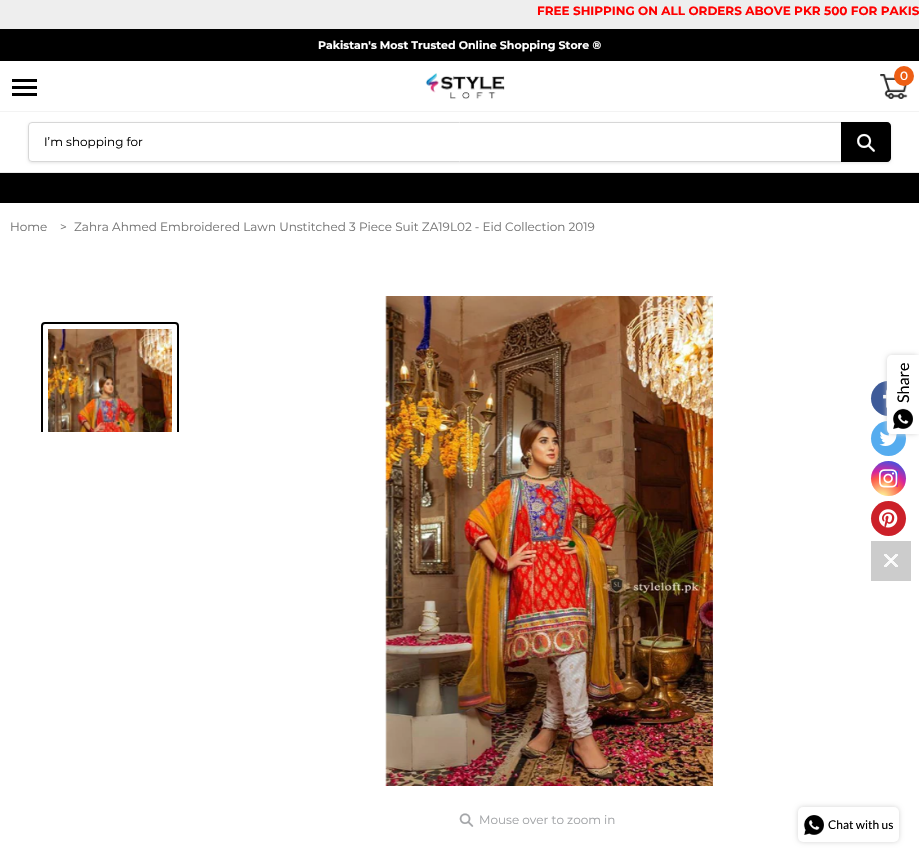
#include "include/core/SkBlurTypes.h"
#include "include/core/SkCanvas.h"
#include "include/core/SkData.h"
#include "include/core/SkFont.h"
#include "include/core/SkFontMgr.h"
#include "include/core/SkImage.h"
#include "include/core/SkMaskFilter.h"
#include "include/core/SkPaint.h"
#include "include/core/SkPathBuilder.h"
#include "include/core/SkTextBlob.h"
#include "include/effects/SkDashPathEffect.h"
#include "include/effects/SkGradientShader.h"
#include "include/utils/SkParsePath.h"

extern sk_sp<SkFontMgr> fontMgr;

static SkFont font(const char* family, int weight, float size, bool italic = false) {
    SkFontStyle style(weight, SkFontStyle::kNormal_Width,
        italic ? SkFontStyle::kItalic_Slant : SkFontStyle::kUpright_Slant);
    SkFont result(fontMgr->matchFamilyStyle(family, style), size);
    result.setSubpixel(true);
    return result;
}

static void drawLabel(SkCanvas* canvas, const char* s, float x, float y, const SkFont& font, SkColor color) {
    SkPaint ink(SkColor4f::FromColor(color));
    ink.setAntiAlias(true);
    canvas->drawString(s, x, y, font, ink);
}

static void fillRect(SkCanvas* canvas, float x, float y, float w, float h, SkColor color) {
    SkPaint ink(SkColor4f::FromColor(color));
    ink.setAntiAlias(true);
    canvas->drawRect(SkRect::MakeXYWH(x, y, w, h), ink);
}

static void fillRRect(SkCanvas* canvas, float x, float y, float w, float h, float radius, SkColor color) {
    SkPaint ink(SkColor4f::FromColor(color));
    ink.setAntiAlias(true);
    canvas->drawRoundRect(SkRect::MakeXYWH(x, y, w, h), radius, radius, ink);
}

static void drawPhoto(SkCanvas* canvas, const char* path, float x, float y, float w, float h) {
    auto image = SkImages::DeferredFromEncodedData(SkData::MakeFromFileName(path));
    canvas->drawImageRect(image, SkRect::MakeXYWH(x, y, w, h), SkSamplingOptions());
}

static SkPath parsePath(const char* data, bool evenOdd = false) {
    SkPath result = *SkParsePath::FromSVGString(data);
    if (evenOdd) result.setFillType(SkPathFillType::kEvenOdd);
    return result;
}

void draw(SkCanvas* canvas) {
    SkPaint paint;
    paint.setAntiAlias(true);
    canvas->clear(0xFFFFFFFF);
    fillRect(canvas, 0, 0, 919, 29, 0xFFEEEEEE);
    SkFont font1 = font("Montserrat", 700, 12);
    drawLabel(canvas, "FREE SHIPPING ON ALL ORDERS ABOVE PKR 500 FOR PAKIS", 537, 15, font1, 0xFFFF0000);
    fillRect(canvas, 0, 29, 919, 32, 0xFF000000);
    SkFont font2 = font("Montserrat", 700, 11);
    drawLabel(canvas, "Pakistan's Most Trusted Online Shopping Store ®", 318, 49, font2, 0xFFFFFFFF);
    fillRect(canvas, 12, 86, 25, 3, 0xFF000000);
    fillRect(canvas, 12, 79, 25, 3, 0xFF000000);
    fillRect(canvas, 12, 93, 25, 3, 0xFF000000);
    drawPhoto(canvas, "assets/img1.png", 425, 73, 80, 26);
    drawPhoto(canvas, "assets/img2.png", 880, 74, 28, 25);
    paint.setColor(0xFFED5E14);
    canvas->drawCircle(904, 76, 10, paint);
    SkFont font3 = font("Montserrat", 500, 12);
    drawLabel(canvas, "0", 900, 80, font3, 0xFFFFFFFF);
    fillRect(canvas, 0, 111, 919, 1, 0xFFF3F3F3);
    fillRect(canvas, 0, 172, 919, 1, 0xFFE9E9E9);
    canvas->save();
    canvas->clipPath(parsePath("M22 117H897V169H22ZM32 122H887C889 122 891 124 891 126V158C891 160 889 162 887 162H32C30 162 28 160 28 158V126C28 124 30 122 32 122Z", true), true);
    paint.setColor(0x1A000000);
    paint.setMaskFilter(SkMaskFilter::MakeBlur(kNormal_SkBlurStyle, 1.5f));
    canvas->drawRoundRect(SkRect::MakeXYWH(28, 123, 863, 40), 4, 4, paint);
    paint.setMaskFilter(nullptr);
    canvas->restore();
    paint.setStroke(true);
    paint.setStrokeWidth(1);
    paint.setColor(0xFFD7D7D7);
    canvas->drawRoundRect(SkRect::MakeXYWH(28.5f, 122.5f, 862, 39), 3.5f, 3.5f, paint);
    SkFont font4 = font("Montserrat", 400, 12);
    drawLabel(canvas, "I’m shopping for", 44, 146, font4, 0xFF000000);
    paint.setStroke(false);
    paint.setColor(0xFF000000);
    canvas->drawPath(parsePath("M841 122H887C889 122 891 124 891 126V158C891 160 889 162 887 162H841Z"), paint);
    drawPhoto(canvas, "assets/img3.png", 857, 133, 18, 19);
    fillRect(canvas, 0, 173, 919, 30, 0xFF000000);
    drawLabel(canvas, "Home", 10, 231, font4, 0xFF757575);
    drawLabel(canvas, ">", 60, 231, font4, 0xFF757575);
    drawLabel(canvas, "Zahra Ahmed Embroidered Lawn Unstitched 3 Piece Suit ZA19L02 - Eid Collection 2019", 74, 231, font4, 0xFF757575);
    paint.setColor(0xFF3E5B99);
    canvas->drawCircle(888.5f, 398.5f, 17.5f, paint);
    drawPhoto(canvas, "assets/img4.png", 883, 389, 4, 19);
    paint.setColor(0xFF55ACEF);
    canvas->drawCircle(888.5f, 438.5f, 17.5f, paint);
    drawPhoto(canvas, "assets/img5.png", 879, 431, 18, 15);
    {
        const SkColor colors[] = {0xFFFDF497, 0xFFFDF497, 0xFFFD5949, 0xFFD6249F, 0xFF285AEB};
        const float stops[] = {0, 0.05f, 0.45f, 0.6f, 0.9f};
        paint.setShader(SkGradientShader::MakeRadial({882, 498}, 45, colors, stops, 5, SkTileMode::kClamp));
        paint.setAlpha(255);
    }
    canvas->drawCircle(888.5f, 478.5f, 17.5f, paint);
    {
        const SkColor colors[] = {0xFFFDF497, 0xFFFDF497, 0xFFFD5949, 0xFFD6249F, 0xFF285AEB};
        const float stops[] = {0, 0.05f, 0.45f, 0.6f, 0.9f};
        paint.setShader(SkGradientShader::MakeRadial({885, 488}, 22, colors, stops, 5, SkTileMode::kClamp));
        paint.setAlpha(255);
    }
    canvas->drawRect(SkRect::MakeXYWH(879, 471, 19, 16), paint);
    drawPhoto(canvas, "assets/img6.png", 879, 469, 19, 19);
    paint.setShader(nullptr);
    paint.setColor(0xFFCC2029);
    canvas->drawCircle(888.5f, 518.5f, 17.5f, paint);
    drawPhoto(canvas, "assets/img7.png", 879, 509, 19, 19);
    fillRect(canvas, 871, 541, 40, 40, 0xFFCCCCCC);
    drawPhoto(canvas, "assets/img8.png", 884, 554, 14, 13);
    canvas->save();
    canvas->clipRect(SkRect::MakeXYWH(30, 316, 160, 116));
    paint.setStroke(true);
    paint.setStrokeWidth(2);
    paint.setColor(0xFF000000);
    canvas->drawRoundRect(SkRect::MakeXYWH(42, 323, 136, 198), 3, 3, paint);
    canvas->restore();
    drawPhoto(canvas, "assets/img9.png", 48, 329, 124, 103);
    drawPhoto(canvas, "assets/img10.png", 385, 296, 328, 490);
    drawPhoto(canvas, "assets/img11.png", 459, 813, 15, 14);
    drawLabel(canvas, "Mouse over to zoom in", 479, 824, font4, 0xFFA2A4A7);
    paint.setStroke(false);
    paint.setColor(0xFFD3D3D3);
    paint.setMaskFilter(SkMaskFilter::MakeBlur(kNormal_SkBlurStyle, 2.5f));
    canvas->drawRoundRect(SkRect::MakeXYWH(887, 355, 32, 79), 5, 5, paint);
    paint.setMaskFilter(nullptr);
    paint.setColor(0xFFFFFFFF);
    canvas->drawPath(parsePath("M892 355H919V434H892C889 434 887 432 887 429V360C887 357 889 355 892 355Z"), paint);
    SkFont font5 = font("Lato", 400, 16);
    canvas->save();
    canvas->rotate(-90, 909, 403);
    drawLabel(canvas, "Share", 909, 403, font5, 0xFF000000);
    canvas->restore();
    drawPhoto(canvas, "assets/img12.png", 893, 408, 20, 21);
    paint.setColor(0xFFD3D3D3);
    paint.setMaskFilter(SkMaskFilter::MakeBlur(kNormal_SkBlurStyle, 2.5f));
    canvas->drawRoundRect(SkRect::MakeXYWH(798, 807, 101, 35), 5, 5, paint);
    paint.setMaskFilter(nullptr);
    fillRRect(canvas, 798, 807, 101, 35, 5, 0xFFFFFFFF);
    drawPhoto(canvas, "assets/img13.png", 803, 815, 21, 20);
    SkFont font6 = font("Lato", 400, 12);
    drawLabel(canvas, "Chat with us", 828, 829, font6, 0xFF000000);
}
